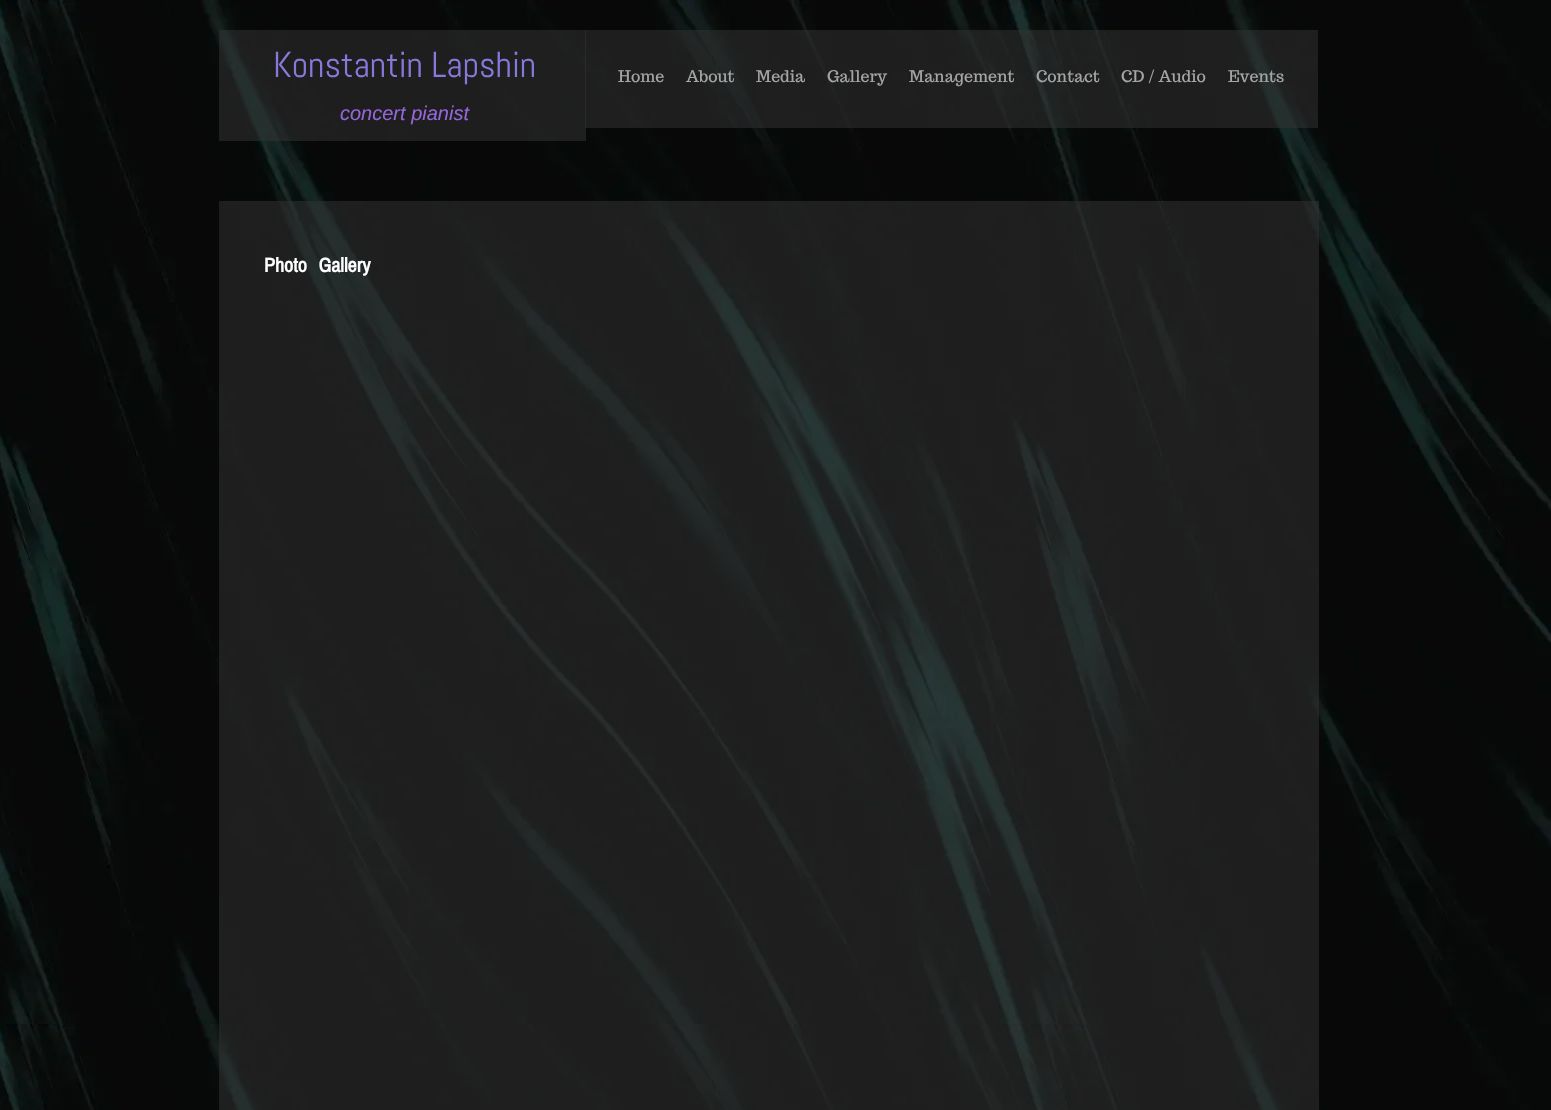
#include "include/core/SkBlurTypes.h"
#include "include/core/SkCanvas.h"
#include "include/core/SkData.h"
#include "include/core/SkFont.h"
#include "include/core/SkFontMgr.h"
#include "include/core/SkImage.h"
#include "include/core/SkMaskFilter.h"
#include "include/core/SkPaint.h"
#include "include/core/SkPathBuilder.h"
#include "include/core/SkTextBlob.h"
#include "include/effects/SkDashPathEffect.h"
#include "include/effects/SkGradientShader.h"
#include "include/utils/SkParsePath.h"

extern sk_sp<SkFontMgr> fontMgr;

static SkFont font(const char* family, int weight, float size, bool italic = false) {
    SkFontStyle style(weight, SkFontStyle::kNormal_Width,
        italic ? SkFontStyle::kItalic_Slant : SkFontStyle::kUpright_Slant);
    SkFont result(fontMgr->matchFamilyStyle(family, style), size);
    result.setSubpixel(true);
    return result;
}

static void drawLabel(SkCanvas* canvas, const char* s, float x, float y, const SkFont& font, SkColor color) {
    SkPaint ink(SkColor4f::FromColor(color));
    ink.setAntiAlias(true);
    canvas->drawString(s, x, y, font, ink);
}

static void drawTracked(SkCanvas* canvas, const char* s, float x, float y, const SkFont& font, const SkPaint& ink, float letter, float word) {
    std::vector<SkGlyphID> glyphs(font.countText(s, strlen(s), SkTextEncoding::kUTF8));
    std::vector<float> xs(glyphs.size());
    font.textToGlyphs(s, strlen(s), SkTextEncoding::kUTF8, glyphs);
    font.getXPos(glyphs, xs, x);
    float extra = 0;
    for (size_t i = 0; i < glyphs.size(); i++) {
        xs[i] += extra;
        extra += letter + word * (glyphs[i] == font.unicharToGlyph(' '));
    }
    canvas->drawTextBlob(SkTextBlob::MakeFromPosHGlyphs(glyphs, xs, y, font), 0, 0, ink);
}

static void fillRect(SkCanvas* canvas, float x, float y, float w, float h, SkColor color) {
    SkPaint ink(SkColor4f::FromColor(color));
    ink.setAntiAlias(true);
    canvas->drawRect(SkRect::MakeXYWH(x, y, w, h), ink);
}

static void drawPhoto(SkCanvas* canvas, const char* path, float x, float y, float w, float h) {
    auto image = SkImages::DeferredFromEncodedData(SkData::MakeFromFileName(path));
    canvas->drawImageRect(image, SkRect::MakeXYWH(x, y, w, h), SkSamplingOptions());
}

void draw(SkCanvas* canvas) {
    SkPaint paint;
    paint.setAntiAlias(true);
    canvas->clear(0xFFFFFFFF);
    drawPhoto(canvas, "assets/img1.png", 0, 0, 1551, 1110);
    fillRect(canvas, 219, 30, 367, 111, 0x80333333);
    SkFont font1 = font("Abel", 400, 36);
    drawLabel(canvas, "Konstantin Lapshin", 273, 77, font1, 0xFF8779DC);
    SkFont font2 = font("Liberation Sans", 400, 20, true);
    drawLabel(canvas, "concert pianist", 340, 120, font2, 0xFF9466DA);
    fillRect(canvas, 585, 30, 733, 98, 0x80333333);
    SkFont font3 = font("Trocchi", 400, 16);
    drawLabel(canvas, "Home", 618, 82, font3, 0xFFA5A5A5);
    drawLabel(canvas, "About", 686, 82, font3, 0xFFA5A5A5);
    drawLabel(canvas, "Media", 756, 82, font3, 0xFFA5A5A5);
    drawLabel(canvas, "Gallery", 827, 82, font3, 0xFFA5A5A5);
    drawLabel(canvas, "Management", 909, 82, font3, 0xFFA5A5A5);
    drawLabel(canvas, "Contact", 1036, 82, font3, 0xFFA5A5A5);
    drawLabel(canvas, "CD / Audio", 1121, 82, font3, 0xFFA5A5A5);
    drawLabel(canvas, "Events", 1228, 82, font3, 0xFFA5A5A5);
    fillRect(canvas, 219, 201, 1100, 909, 0x80333333);
    SkFont font4 = font("Archivo Narrow", 700, 20);
    paint.setColor(0xFFFFFFFF);
    drawTracked(canvas, "Photo Gallery", 264, 272, font4, paint, 0, 7);
}
